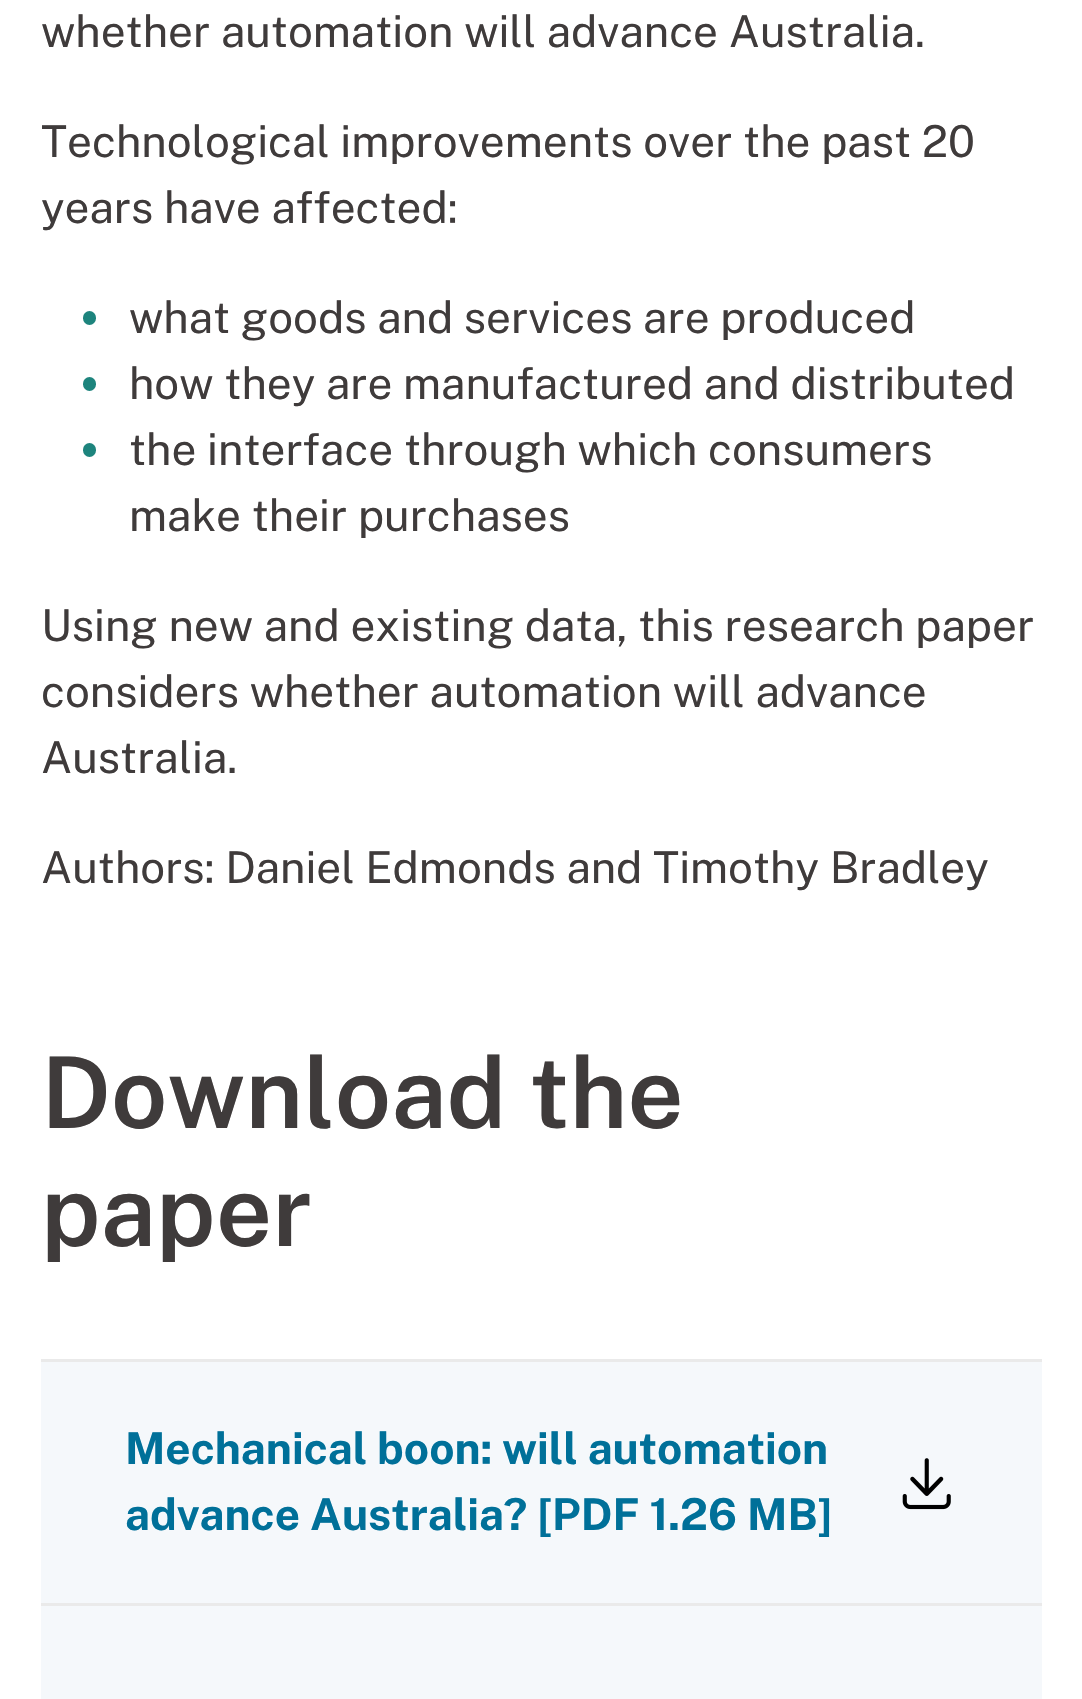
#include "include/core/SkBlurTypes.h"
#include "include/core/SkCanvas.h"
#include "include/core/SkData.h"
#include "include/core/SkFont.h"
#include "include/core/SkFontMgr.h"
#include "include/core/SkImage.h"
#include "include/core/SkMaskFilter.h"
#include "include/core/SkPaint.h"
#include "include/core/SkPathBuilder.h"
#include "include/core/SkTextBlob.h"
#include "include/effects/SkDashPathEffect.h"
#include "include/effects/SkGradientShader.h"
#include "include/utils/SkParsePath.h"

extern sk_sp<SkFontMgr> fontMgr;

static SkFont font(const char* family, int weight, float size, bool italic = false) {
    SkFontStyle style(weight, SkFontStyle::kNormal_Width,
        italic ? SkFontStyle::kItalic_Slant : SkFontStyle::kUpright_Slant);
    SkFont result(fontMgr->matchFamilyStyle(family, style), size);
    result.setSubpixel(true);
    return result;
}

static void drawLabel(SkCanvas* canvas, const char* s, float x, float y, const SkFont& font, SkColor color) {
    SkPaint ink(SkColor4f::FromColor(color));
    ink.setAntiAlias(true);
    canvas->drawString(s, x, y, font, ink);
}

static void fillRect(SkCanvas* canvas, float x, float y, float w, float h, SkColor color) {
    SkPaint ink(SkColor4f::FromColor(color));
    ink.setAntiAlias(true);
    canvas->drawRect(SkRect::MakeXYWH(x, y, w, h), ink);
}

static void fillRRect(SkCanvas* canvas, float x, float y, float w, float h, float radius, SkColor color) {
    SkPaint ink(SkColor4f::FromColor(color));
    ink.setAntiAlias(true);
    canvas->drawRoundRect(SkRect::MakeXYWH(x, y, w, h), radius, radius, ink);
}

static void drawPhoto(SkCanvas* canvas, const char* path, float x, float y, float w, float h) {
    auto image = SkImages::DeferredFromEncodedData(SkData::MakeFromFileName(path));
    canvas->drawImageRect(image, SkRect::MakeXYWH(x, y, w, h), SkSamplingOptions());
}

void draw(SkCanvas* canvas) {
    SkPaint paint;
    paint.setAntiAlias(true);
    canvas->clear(0xFFFFFFFF);
    SkFont font1 = font("Public Sans", 400, 44);
    drawLabel(canvas, "whether automation will advance Australia.", 41, 47, font1, 0xFF3F3B3B);
    drawLabel(canvas, "Technological improvements over the past 20", 41, 157, font1, 0xFF3F3B3B);
    drawLabel(canvas, "years have affected:", 41, 223, font1, 0xFF3F3B3B);
    fillRRect(canvas, 83, 311, 13, 14, 6.5f, 0xFF1D847D);
    drawLabel(canvas, "what goods and services are produced", 129, 333, font1, 0xFF3F3B3B);
    fillRRect(canvas, 83, 377, 13, 14, 6.5f, 0xFF1D847D);
    drawLabel(canvas, "how they are manufactured and distributed", 129, 399, font1, 0xFF3F3B3B);
    fillRRect(canvas, 83, 443, 13, 14, 6.5f, 0xFF1D847D);
    drawLabel(canvas, "the interface through which consumers", 129, 465, font1, 0xFF3F3B3B);
    drawLabel(canvas, "make their purchases", 129, 531, font1, 0xFF3F3B3B);
    drawLabel(canvas, "Using new and existing data, this research paper", 41, 641, font1, 0xFF3F3B3B);
    drawLabel(canvas, "considers whether automation will advance", 41, 707, font1, 0xFF3F3B3B);
    drawLabel(canvas, "Australia.", 41, 773, font1, 0xFF3F3B3B);
    drawLabel(canvas, "Authors: Daniel Edmonds and Timothy Bradley", 41, 883, font1, 0xFF3F3B3B);
    SkFont font2 = font("Public Sans", 600, 99);
    drawLabel(canvas, "Download the", 41, 1128, font2, 0xFF3F3B3B);
    drawLabel(canvas, "paper", 41, 1246, font2, 0xFF3F3B3B);
    fillRect(canvas, 41, 1362, 1001, 241, 0xFFF5F8FB);
    fillRect(canvas, 41, 1359, 1001, 3, 0xFFEAEAEA);
    SkFont font3 = font("Public Sans", 700, 44);
    drawLabel(canvas, "Mechanical boon: will automation", 125, 1464, font3, 0xFF007099);
    drawLabel(canvas, "advance Australia? [PDF 1.26 MB]", 125, 1530, font3, 0xFF007099);
    drawPhoto(canvas, "assets/img1.png", 902, 1458, 49, 52);
    fillRect(canvas, 41, 1606, 1001, 93, 0xFFF5F8FB);
    fillRect(canvas, 41, 1603, 1001, 3, 0xFFEAEAEA);
}
